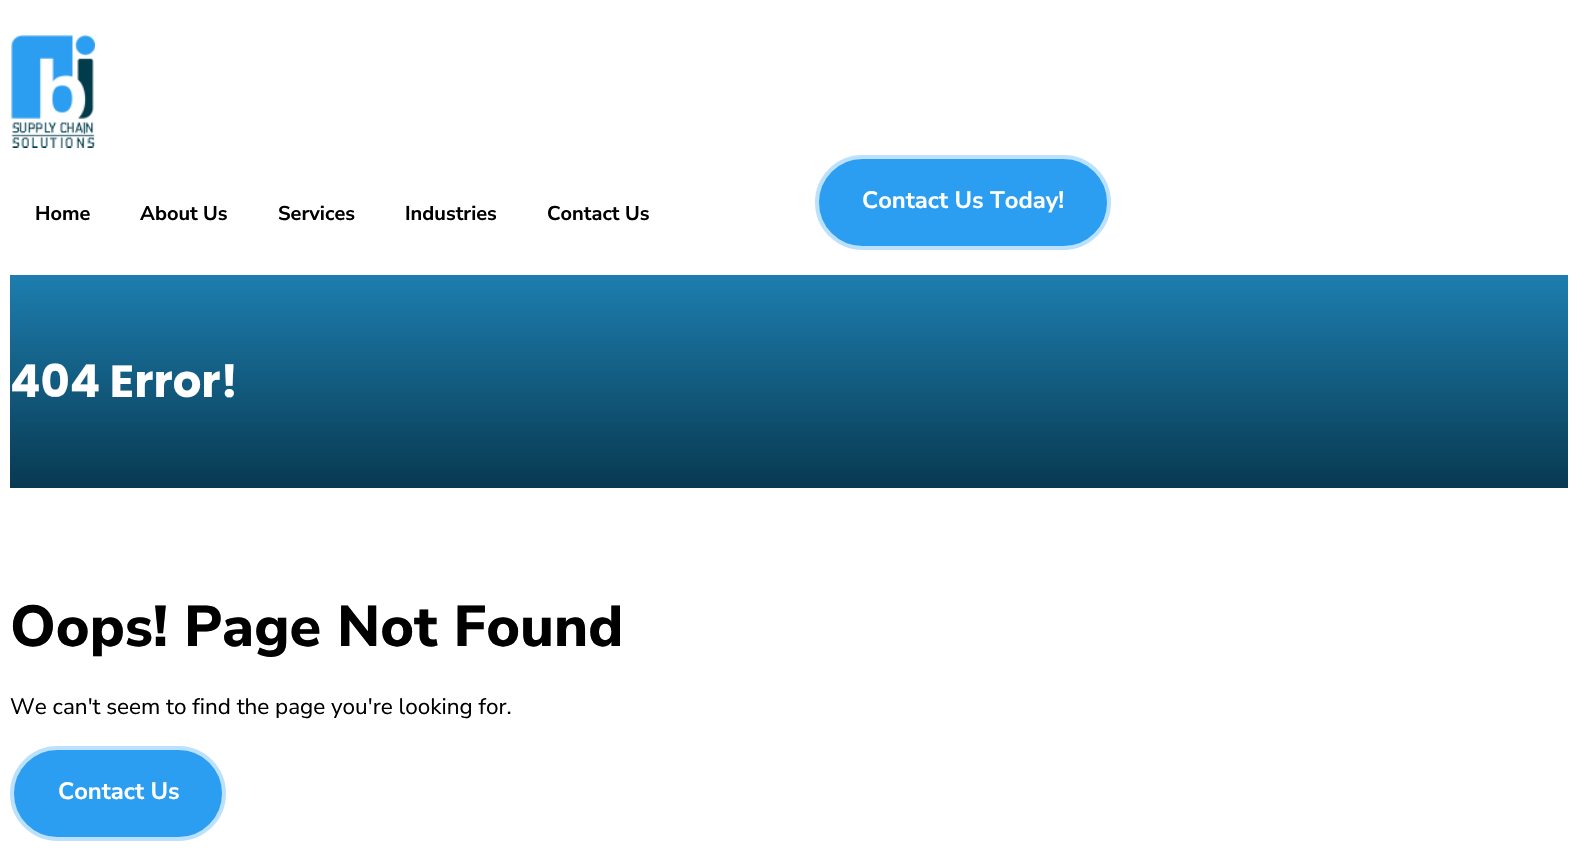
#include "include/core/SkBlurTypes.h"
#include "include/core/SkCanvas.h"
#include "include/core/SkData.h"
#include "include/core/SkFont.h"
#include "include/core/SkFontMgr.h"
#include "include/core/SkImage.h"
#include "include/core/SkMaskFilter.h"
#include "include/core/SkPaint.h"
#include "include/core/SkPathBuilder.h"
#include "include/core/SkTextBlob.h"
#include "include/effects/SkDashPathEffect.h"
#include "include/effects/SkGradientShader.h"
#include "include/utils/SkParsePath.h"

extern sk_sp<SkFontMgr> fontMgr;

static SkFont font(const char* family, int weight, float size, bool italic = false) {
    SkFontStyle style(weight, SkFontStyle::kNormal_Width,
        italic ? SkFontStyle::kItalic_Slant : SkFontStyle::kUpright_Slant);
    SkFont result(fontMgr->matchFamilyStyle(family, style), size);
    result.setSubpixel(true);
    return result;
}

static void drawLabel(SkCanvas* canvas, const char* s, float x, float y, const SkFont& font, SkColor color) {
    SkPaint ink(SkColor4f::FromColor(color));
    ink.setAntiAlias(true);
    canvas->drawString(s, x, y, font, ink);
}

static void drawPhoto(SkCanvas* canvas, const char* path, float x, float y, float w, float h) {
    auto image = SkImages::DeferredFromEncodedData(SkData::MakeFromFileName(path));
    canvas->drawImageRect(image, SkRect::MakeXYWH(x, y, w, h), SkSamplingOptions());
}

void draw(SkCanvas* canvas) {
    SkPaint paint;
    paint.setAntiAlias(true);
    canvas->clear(0xFFFFFFFF);
    drawPhoto(canvas, "assets/img1.png", 11, 35, 84, 113);
    SkFont font1 = font("Nunito Sans", 700, 20);
    drawLabel(canvas, "Home", 35, 220, font1, 0xFF000000);
    drawLabel(canvas, "About Us", 140, 220, font1, 0xFF000000);
    drawLabel(canvas, "Services", 278, 220, font1, 0xFF000000);
    drawLabel(canvas, "Industries", 405, 220, font1, 0xFF000000);
    drawLabel(canvas, "Contact Us", 547, 220, font1, 0xFF000000);
    paint.setColor(0xFF2B9EF1);
    canvas->drawRoundRect(SkRect::MakeXYWH(817, 157, 292, 91), 45.5f, 45.5f, paint);
    paint.setStroke(true);
    paint.setStrokeWidth(4);
    paint.setColor(0xFFBBE1FC);
    canvas->drawRoundRect(SkRect::MakeXYWH(817, 157, 292, 91), 45.5f, 45.5f, paint);
    SkFont font2 = font("Nunito Sans", 700, 23.75f);
    drawLabel(canvas, "Contact Us Today!", 862, 208, font2, 0xFFFFFFFF);
    paint.setStroke(false);
    {
        const SkColor colors[] = {0xFF083951, 0xFF1D7EAF};
        const float stops[] = {0, 1};
        const SkPoint ends[] = {{789, 488}, {789, 275}};
        paint.setShader(SkGradientShader::MakeLinear(ends, colors, stops, 2, SkTileMode::kClamp));
        paint.setAlpha(255);
    }
    canvas->drawRect(SkRect::MakeXYWH(10, 275, 1558, 213), paint);
    SkFont font3 = font("Poppins", 700, 45);
    drawLabel(canvas, "404 Error!", 10, 397, font3, 0xFFFFFFFF);
    SkFont font4 = font("Nunito Sans", 800, 57.5f);
    drawLabel(canvas, "Oops! Page Not Found", 10, 646, font4, 0xFF000000);
    SkFont font5 = font("Nunito Sans", 400, 22.5f);
    drawLabel(canvas, "We can't seem to find the page you're looking for.", 10, 714, font5, 0xFF000000);
    paint.setShader(nullptr);
    paint.setColor(0xFF2B9EF1);
    canvas->drawRoundRect(SkRect::MakeXYWH(12, 748, 212, 91), 45.5f, 45.5f, paint);
    paint.setStroke(true);
    paint.setColor(0xFFBBE1FC);
    canvas->drawRoundRect(SkRect::MakeXYWH(12, 748, 212, 91), 45.5f, 45.5f, paint);
    drawLabel(canvas, "Contact Us", 58, 799, font2, 0xFFFFFFFF);
}
